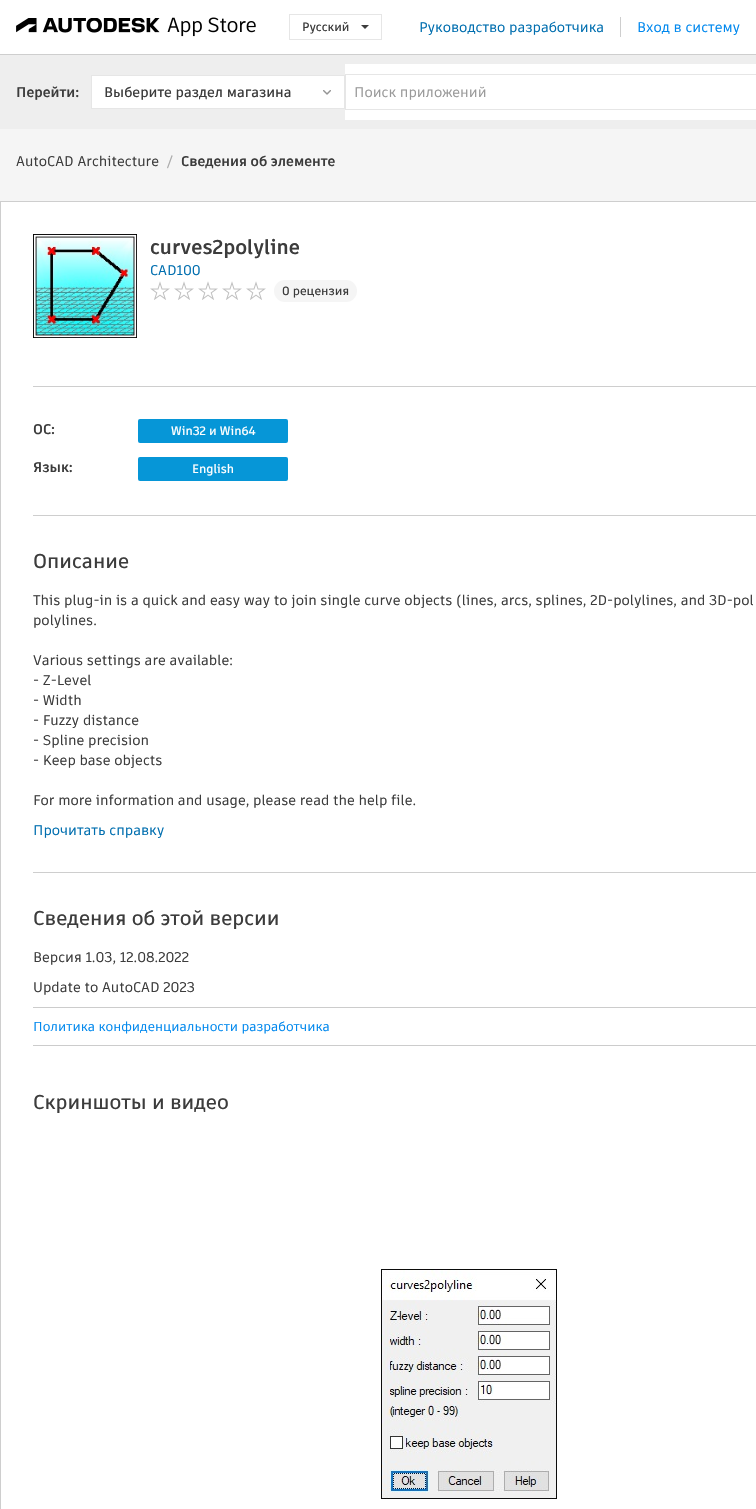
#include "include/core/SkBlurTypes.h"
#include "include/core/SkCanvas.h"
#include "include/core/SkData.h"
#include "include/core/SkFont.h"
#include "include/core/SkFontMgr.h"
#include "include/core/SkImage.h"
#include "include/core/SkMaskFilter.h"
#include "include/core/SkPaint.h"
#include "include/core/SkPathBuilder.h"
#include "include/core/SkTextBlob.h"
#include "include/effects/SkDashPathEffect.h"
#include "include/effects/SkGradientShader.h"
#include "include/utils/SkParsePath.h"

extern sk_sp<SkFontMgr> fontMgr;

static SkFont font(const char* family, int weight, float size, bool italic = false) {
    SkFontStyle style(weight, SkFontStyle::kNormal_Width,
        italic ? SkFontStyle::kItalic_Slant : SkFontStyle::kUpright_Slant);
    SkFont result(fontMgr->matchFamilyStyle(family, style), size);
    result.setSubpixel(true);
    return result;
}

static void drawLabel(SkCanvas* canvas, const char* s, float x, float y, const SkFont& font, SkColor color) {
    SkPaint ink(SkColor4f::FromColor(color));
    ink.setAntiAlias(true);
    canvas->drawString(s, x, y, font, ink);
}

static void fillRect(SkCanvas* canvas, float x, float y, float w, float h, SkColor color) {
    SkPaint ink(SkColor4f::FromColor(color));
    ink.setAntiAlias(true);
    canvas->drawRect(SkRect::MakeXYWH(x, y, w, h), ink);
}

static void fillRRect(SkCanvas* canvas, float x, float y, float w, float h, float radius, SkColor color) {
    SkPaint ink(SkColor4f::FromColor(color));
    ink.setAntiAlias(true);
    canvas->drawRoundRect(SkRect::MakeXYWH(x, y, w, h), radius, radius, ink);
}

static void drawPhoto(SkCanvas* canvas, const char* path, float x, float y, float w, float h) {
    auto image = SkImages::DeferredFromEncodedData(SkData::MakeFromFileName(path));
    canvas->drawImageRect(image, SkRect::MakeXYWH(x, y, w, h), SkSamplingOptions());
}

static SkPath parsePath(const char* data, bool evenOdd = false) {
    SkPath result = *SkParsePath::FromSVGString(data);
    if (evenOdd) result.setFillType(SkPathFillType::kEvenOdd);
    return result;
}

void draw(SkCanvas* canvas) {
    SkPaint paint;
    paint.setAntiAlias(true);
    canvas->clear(0xFFF5F5F5);
    fillRect(canvas, 0, 0, 756, 54, 0xFFFFFFFF);
    fillRect(canvas, 0, 54, 756, 1, 0xFFCECECE);
    drawPhoto(canvas, "assets/img1.png", 16, 17, 240, 20);
    paint.setStroke(true);
    paint.setStrokeWidth(1);
    paint.setColor(0xFFE6E6E6);
    canvas->drawRect(SkRect::MakeXYWH(289.5f, 14.5f, 92, 25), paint);
    SkFont font1 = font("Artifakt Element", 600, 12);
    drawLabel(canvas, "Русский", 302, 31, font1, 0xFF3C3C3C);
    paint.setStroke(false);
    paint.setColor(0xFF3C3C3C);
    canvas->drawPath(parsePath("M361 25H369L365 29Z"), paint);
    fillRect(canvas, 620, 17, 1, 20, 0xFFCECECE);
    SkFont font2 = font("Artifakt Element", 500, 14);
    drawLabel(canvas, "Руководство разработчика", 419, 32, font2, 0xFF006EAF);
    drawLabel(canvas, "Вход в систему", 637, 32, font2, 0xFF0088EE);
    fillRect(canvas, 0, 55, 756, 74, 0xFFEEEEEE);
    SkFont font3 = font("Artifakt Element", 700, 14);
    drawLabel(canvas, "Перейти:", 16, 97, font3, 0xFF3C3C3C);
    paint.setColor(0xFFFFFFFF);
    canvas->drawRect(SkRect::MakeXYWH(91.5f, 75.5f, 253, 33), paint);
    paint.setStroke(true);
    paint.setColor(0xFFE6E6E6);
    canvas->drawRect(SkRect::MakeXYWH(91.5f, 75.5f, 253, 33), paint);
    SkFont font4 = font("Artifakt Element", 600, 14);
    drawLabel(canvas, "Выберите раздел магазина", 104, 97, font4, 0xFF3C3C3C);
    drawPhoto(canvas, "assets/img2.png", 323, 90, 8, 5);
    fillRect(canvas, 345, 64, 411, 56, 0xFFFFFFFF);
    canvas->drawRect(SkRect::MakeXYWH(345.5f, 74.5f, 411, 35), paint);
    drawLabel(canvas, "Поиск приложений", 354, 97, font2, 0xFF999999);
    drawLabel(canvas, "AutoCAD Architecture", 16, 166, font2, 0xFF3C3C3C);
    drawLabel(canvas, "/", 167, 166, font2, 0xFFABABAB);
    drawLabel(canvas, "Сведения об элементе", 181, 166, font3, 0xFF3C3C3C);
    paint.setStroke(false);
    paint.setColor(0xFFFFFFFF);
    canvas->drawRect(SkRect::MakeXYWH(0.5f, 201.5f, 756, 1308), paint);
    paint.setStroke(true);
    paint.setColor(0xFFCECECE);
    canvas->drawRect(SkRect::MakeXYWH(0.5f, 201.5f, 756, 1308), paint);
    fillRect(canvas, 33, 386, 723, 1, 0xFFCECECE);
    drawPhoto(canvas, "assets/img3.png", 33, 234, 104, 104);
    SkFont font5 = font("Artifakt Element", 700, 20);
    drawLabel(canvas, "curves2polyline", 150, 254, font5, 0xFF3C3C3C);
    drawLabel(canvas, "CAD100", 150, 275, font2, 0xFF006EAF);
    drawPhoto(canvas, "assets/img4.png", 150, 281, 20, 19);
    drawPhoto(canvas, "assets/img4.png", 174, 281, 20, 19);
    drawPhoto(canvas, "assets/img4.png", 198, 281, 20, 19);
    drawPhoto(canvas, "assets/img4.png", 222, 281, 20, 19);
    drawPhoto(canvas, "assets/img4.png", 246, 281, 20, 19);
    fillRRect(canvas, 274, 280, 83, 22, 11, 0xFFF5F5F5);
    drawLabel(canvas, "0 рецензия", 282, 295, font1, 0xFF3C3C3C);
    fillRect(canvas, 33, 515, 723, 1, 0xFFCECECE);
    drawLabel(canvas, "ОС:", 33, 434, font3, 0xFF3C3C3C);
    fillRRect(canvas, 138, 419, 150, 24, 2, 0xFF0696D7);
    drawLabel(canvas, "Win32 и Win64", 171, 435, font1, 0xFFFFFFFF);
    drawLabel(canvas, "Язык:", 33, 472, font3, 0xFF3C3C3C);
    fillRRect(canvas, 138, 457, 150, 24, 2, 0xFF0696D7);
    drawLabel(canvas, "English", 192, 473, font1, 0xFFFFFFFF);
    fillRect(canvas, 33, 872, 723, 1, 0xFFCECECE);
    SkFont font6 = font("Artifakt Element", 600, 20);
    drawLabel(canvas, "Описание", 33, 568, font6, 0xFF3C3C3C);
    drawLabel(canvas, "This plug-in is a quick and easy way to join single curve objects (lines, arcs, splines, 2D-polylines, and 3D-pol", 33, 605, font2, 0xFF3C3C3C);
    drawLabel(canvas, "polylines.", 33, 625, font2, 0xFF3C3C3C);
    drawLabel(canvas, "Various settings are available:", 33, 665, font2, 0xFF3C3C3C);
    drawLabel(canvas, "- Z-Level", 33, 685, font2, 0xFF3C3C3C);
    drawLabel(canvas, "- Width", 33, 705, font2, 0xFF3C3C3C);
    drawLabel(canvas, "- Fuzzy distance", 33, 725, font2, 0xFF3C3C3C);
    drawLabel(canvas, "- Spline precision", 33, 745, font2, 0xFF3C3C3C);
    drawLabel(canvas, "- Keep base objects", 33, 765, font2, 0xFF3C3C3C);
    drawLabel(canvas, "For more information and usage, please read the help file.", 33, 805, font2, 0xFF3C3C3C);
    drawLabel(canvas, "Прочитать справку", 33, 835, font2, 0xFF006EAF);
    drawLabel(canvas, "Сведения об этой версии", 33, 925, font6, 0xFF3C3C3C);
    drawLabel(canvas, "Версия 1.03, 12.08.2022", 33, 962, font2, 0xFF3C3C3C);
    drawLabel(canvas, "Update to AutoCAD 2023", 33, 992, font2, 0xFF3C3C3C);
    fillRect(canvas, 33, 1007, 723, 1, 0xFFCCCCCC);
    SkFont font7 = font("Artifakt Element", 500, 13);
    drawLabel(canvas, "Политика конфиденциальности разработчика", 33, 1031, font7, 0xFF0088EE);
    fillRect(canvas, 33, 1045, 723, 1, 0xFFCCCCCC);
    drawLabel(canvas, "Скриншоты и видео", 33, 1109, font6, 0xFF3C3C3C);
    drawPhoto(canvas, "assets/img5.png", 381, 1269, 176, 230);
}
